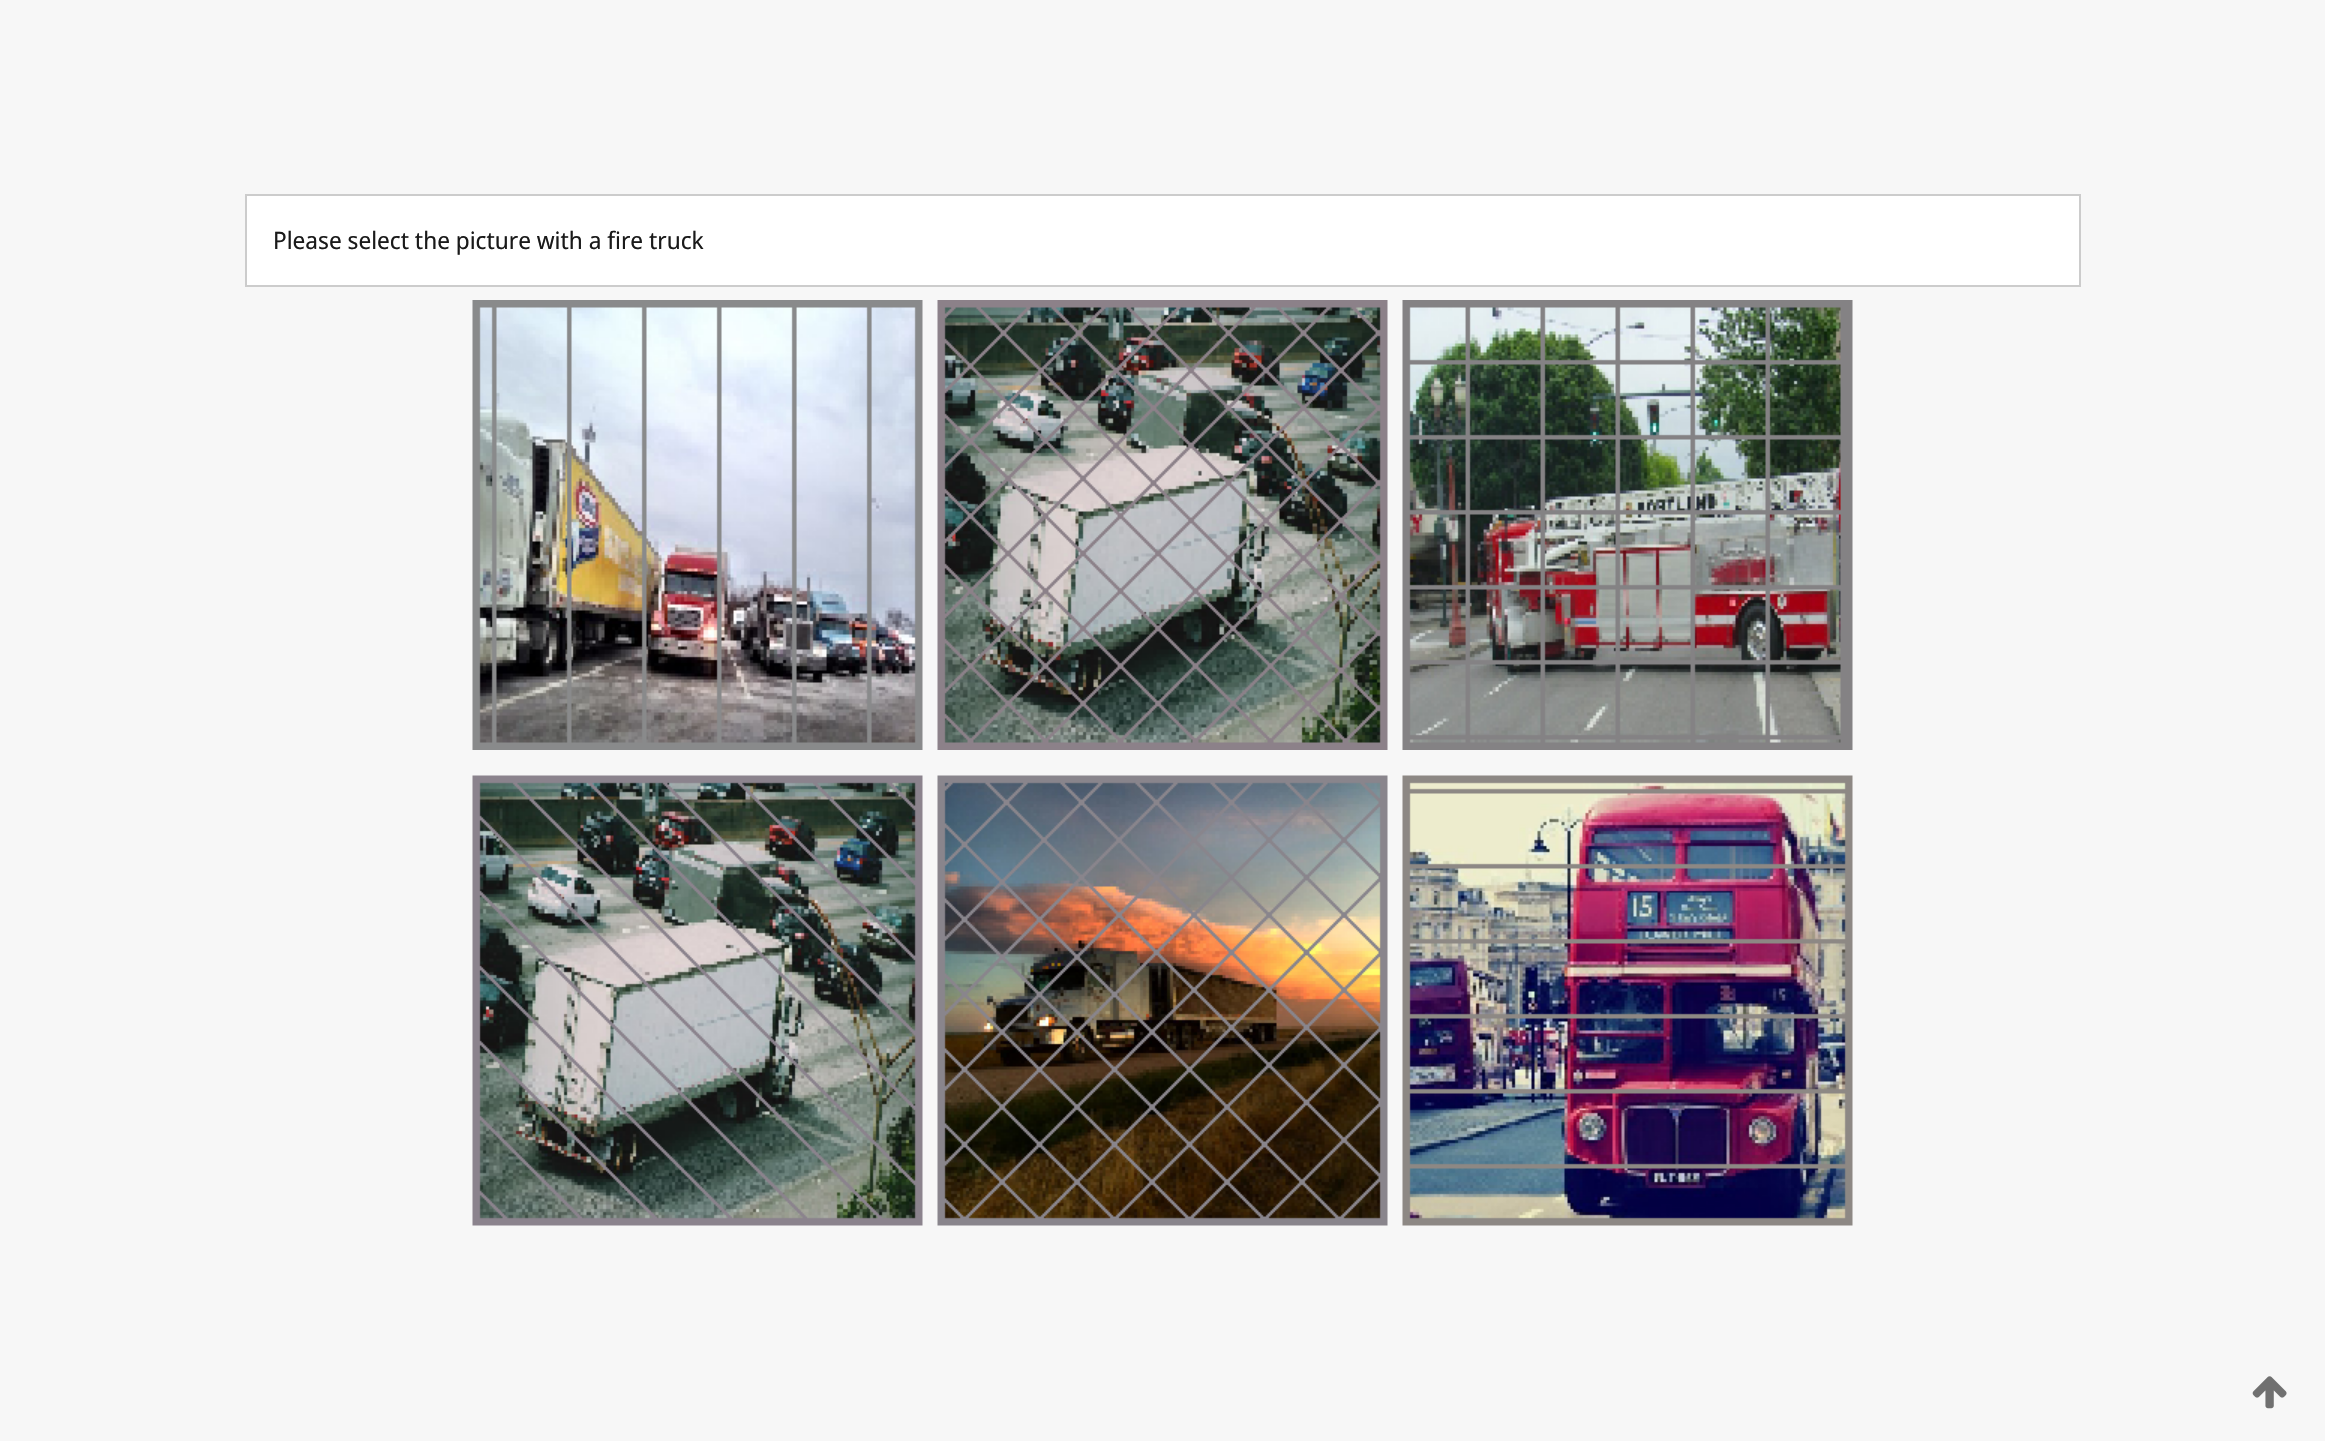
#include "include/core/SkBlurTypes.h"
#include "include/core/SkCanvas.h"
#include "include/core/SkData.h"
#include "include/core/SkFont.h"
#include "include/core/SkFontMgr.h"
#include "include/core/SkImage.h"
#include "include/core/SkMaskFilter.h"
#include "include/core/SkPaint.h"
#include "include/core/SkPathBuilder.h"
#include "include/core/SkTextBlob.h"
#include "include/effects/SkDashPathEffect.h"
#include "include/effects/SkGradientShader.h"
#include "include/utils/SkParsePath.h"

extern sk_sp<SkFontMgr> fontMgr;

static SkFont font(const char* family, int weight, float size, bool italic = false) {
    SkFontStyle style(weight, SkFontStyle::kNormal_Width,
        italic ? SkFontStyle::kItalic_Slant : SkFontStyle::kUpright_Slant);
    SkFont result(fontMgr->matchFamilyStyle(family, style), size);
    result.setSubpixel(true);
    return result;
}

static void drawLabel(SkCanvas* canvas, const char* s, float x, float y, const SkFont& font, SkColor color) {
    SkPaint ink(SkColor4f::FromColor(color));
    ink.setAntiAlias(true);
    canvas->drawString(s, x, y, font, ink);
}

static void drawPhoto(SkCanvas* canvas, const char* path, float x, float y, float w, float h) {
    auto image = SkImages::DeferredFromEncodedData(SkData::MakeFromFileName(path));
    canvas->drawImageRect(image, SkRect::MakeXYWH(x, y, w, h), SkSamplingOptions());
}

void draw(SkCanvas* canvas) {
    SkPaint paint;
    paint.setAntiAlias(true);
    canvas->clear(0xFFF7F7F7);
    paint.setColor(0xFFFFFFFF);
    canvas->drawRect(SkRect::MakeXYWH(246, 195, 1834, 91), paint);
    paint.setStroke(true);
    paint.setStrokeWidth(2);
    paint.setColor(0xFFCCCCCC);
    canvas->drawRect(SkRect::MakeXYWH(246, 195, 1834, 91), paint);
    SkFont font1 = font("Noto Sans Display", 400, 24);
    drawLabel(canvas, "Please select the picture with a fire truck", 273, 249, font1, 0xFF1A1A1A);
    drawPhoto(canvas, "assets/img1.png", 472, 300, 451, 450);
    drawPhoto(canvas, "assets/img2.png", 937, 300, 451, 450);
    drawPhoto(canvas, "assets/img3.png", 1402, 300, 451, 450);
    drawPhoto(canvas, "assets/img4.png", 472, 775, 451, 451);
    drawPhoto(canvas, "assets/img5.png", 937, 775, 451, 451);
    drawPhoto(canvas, "assets/img6.png", 1402, 775, 451, 451);
    drawPhoto(canvas, "assets/img7.png", 2252, 1376, 35, 33);
}
